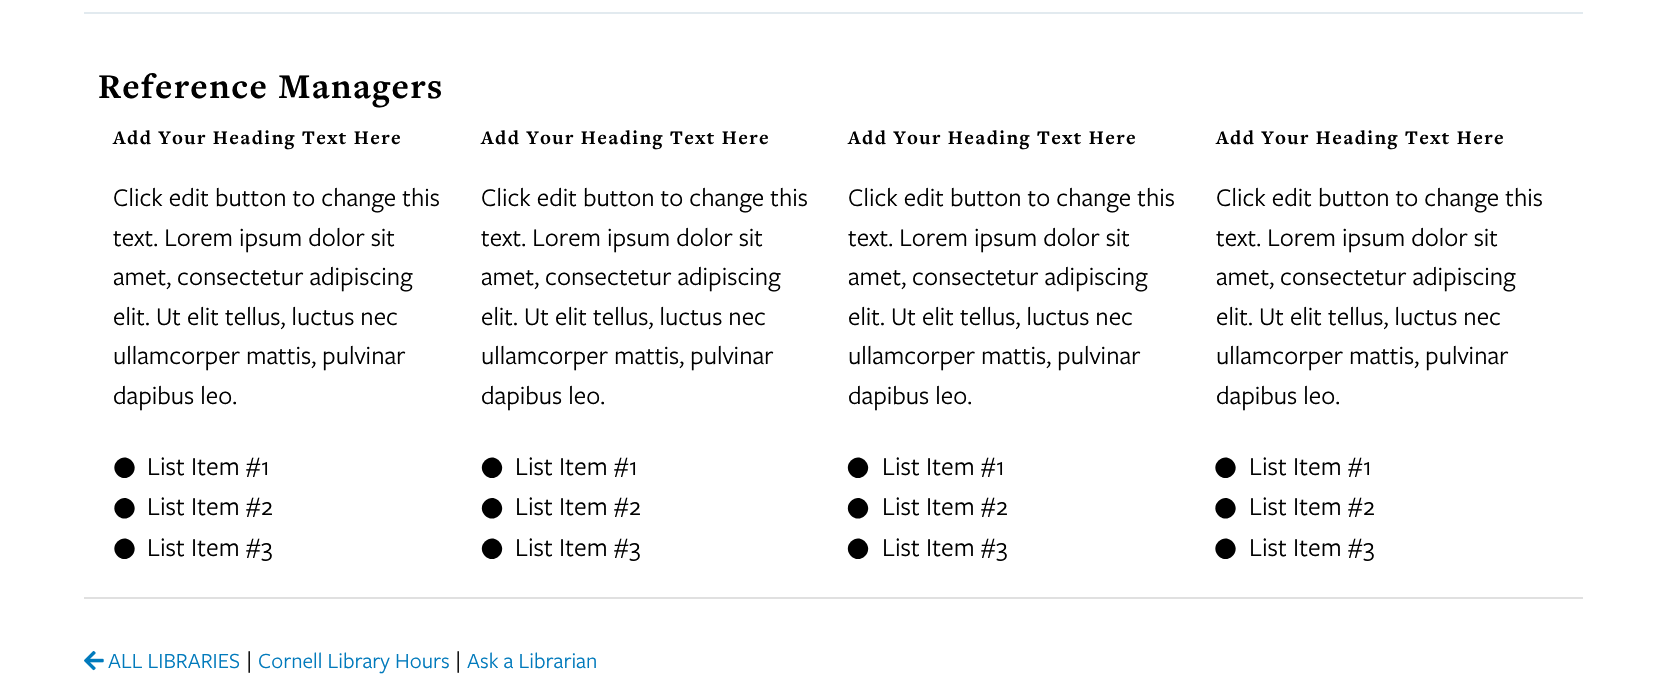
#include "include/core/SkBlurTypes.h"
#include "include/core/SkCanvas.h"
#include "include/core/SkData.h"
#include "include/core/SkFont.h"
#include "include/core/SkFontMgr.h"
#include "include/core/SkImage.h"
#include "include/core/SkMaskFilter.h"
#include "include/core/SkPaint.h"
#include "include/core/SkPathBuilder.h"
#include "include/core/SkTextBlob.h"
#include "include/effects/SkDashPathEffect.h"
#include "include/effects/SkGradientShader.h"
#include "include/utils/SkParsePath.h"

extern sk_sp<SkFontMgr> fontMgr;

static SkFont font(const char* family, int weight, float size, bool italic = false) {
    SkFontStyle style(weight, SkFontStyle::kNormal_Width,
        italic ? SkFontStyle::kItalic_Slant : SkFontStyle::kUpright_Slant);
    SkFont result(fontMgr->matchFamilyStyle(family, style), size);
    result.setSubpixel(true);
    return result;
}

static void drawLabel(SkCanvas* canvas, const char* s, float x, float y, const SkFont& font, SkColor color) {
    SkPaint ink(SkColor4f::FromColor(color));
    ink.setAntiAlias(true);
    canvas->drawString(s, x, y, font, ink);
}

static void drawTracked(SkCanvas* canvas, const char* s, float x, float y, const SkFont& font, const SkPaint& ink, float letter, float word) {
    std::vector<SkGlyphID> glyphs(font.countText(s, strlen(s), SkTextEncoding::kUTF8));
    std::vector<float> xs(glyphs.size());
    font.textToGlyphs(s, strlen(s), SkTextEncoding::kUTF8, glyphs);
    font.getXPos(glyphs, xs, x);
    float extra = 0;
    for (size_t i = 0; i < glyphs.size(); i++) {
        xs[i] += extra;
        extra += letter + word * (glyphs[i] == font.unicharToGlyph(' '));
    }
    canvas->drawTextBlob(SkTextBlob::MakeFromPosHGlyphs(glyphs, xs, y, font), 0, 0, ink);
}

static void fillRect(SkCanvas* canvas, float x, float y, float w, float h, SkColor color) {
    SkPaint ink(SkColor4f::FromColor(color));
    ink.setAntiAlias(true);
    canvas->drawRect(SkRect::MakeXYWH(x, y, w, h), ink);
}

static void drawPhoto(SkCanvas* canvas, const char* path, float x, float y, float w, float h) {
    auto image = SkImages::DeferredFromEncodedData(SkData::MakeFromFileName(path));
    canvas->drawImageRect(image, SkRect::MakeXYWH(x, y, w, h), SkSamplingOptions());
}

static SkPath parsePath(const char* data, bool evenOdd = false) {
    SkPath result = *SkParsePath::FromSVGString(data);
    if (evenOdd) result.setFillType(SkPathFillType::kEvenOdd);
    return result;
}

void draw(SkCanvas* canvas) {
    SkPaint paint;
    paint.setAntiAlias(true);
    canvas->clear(0xFFFFFFFF);
    fillRect(canvas, 84, 12, 1499, 2, 0xFFE2EAEF);
    SkFont font1 = font("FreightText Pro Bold", 700, 36);
    paint.setColor(0xFF000000);
    drawTracked(canvas, "Reference Managers", 98, 98, font1, paint, 1.5f, 0);
    SkFont font2 = font("FreightText Pro Bold", 700, 19.9f);
    drawTracked(canvas, "Add Your Heading Text Here", 113, 144, font2, paint, 1.5f, 0);
    SkFont font3 = font("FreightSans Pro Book", 400, 26.4f);
    drawLabel(canvas, "Click edit button to change this", 113, 206, font3, 0xFF000000);
    drawLabel(canvas, "text. Lorem ipsum dolor sit", 113, 246, font3, 0xFF000000);
    drawLabel(canvas, "amet, consectetur adipiscing", 113, 285, font3, 0xFF000000);
    drawLabel(canvas, "elit. Ut elit tellus, luctus nec", 113, 325, font3, 0xFF000000);
    drawLabel(canvas, "ullamcorper mattis, pulvinar", 113, 364, font3, 0xFF000000);
    drawLabel(canvas, "dapibus leo.", 113, 404, font3, 0xFF000000);
    canvas->drawPath(parsePath("M117.5 460.5C127 451 141 465.5 131.5 475C122 484.5 108 470 117.5 460.5Z"), paint);
    SkFont font4 = font("FreightSans Pro Book", 400, 27);
    drawLabel(canvas, "List Item #1", 147, 475, font4, 0xFF000000);
    canvas->drawPath(parsePath("M117.5 501C127 491.5 141 506 131.5 515.5C122 525 108 510.5 117.5 501Z"), paint);
    drawLabel(canvas, "List Item #2", 147, 515, font4, 0xFF000000);
    canvas->drawPath(parsePath("M117.5 541.5C127 532 141 546.5 131.5 556C122 565.5 108 551 117.5 541.5Z"), paint);
    drawLabel(canvas, "List Item #3", 147, 556, font4, 0xFF000000);
    drawTracked(canvas, "Add Your Heading Text Here", 481, 144, font2, paint, 1.5f, 0);
    drawLabel(canvas, "Click edit button to change this", 481, 206, font3, 0xFF000000);
    drawLabel(canvas, "text. Lorem ipsum dolor sit", 481, 246, font3, 0xFF000000);
    drawLabel(canvas, "amet, consectetur adipiscing", 481, 285, font3, 0xFF000000);
    drawLabel(canvas, "elit. Ut elit tellus, luctus nec", 481, 325, font3, 0xFF000000);
    drawLabel(canvas, "ullamcorper mattis, pulvinar", 481, 364, font3, 0xFF000000);
    drawLabel(canvas, "dapibus leo.", 481, 404, font3, 0xFF000000);
    canvas->drawPath(parsePath("M485 460.5C494.5 451 508.5 465.5 499 475C489.5 484.5 475.5 470 485 460.5Z"), paint);
    drawLabel(canvas, "List Item #1", 515, 475, font4, 0xFF000000);
    canvas->drawPath(parsePath("M485 501C494.5 491.5 508.5 506 499 515.5C489.5 525 475.5 510.5 485 501Z"), paint);
    drawLabel(canvas, "List Item #2", 515, 515, font4, 0xFF000000);
    canvas->drawPath(parsePath("M485 541.5C494.5 532 508.5 546.5 499 556C489.5 565.5 475.5 551 485 541.5Z"), paint);
    drawLabel(canvas, "List Item #3", 515, 556, font4, 0xFF000000);
    drawTracked(canvas, "Add Your Heading Text Here", 848, 144, font2, paint, 1.5f, 0);
    drawLabel(canvas, "Click edit button to change this", 848, 206, font3, 0xFF000000);
    drawLabel(canvas, "text. Lorem ipsum dolor sit", 848, 246, font3, 0xFF000000);
    drawLabel(canvas, "amet, consectetur adipiscing", 848, 285, font3, 0xFF000000);
    drawLabel(canvas, "elit. Ut elit tellus, luctus nec", 848, 325, font3, 0xFF000000);
    drawLabel(canvas, "ullamcorper mattis, pulvinar", 848, 364, font3, 0xFF000000);
    drawLabel(canvas, "dapibus leo.", 848, 404, font3, 0xFF000000);
    canvas->drawPath(parsePath("M851 460.5C860.5 451 874.5 465.5 865 475C855.5 484.5 841.5 470 851 460.5Z"), paint);
    drawLabel(canvas, "List Item #1", 882, 475, font4, 0xFF000000);
    canvas->drawPath(parsePath("M851 501C860.5 491.5 874.5 506 865 515.5C855.5 525 841.5 510.5 851 501Z"), paint);
    drawLabel(canvas, "List Item #2", 882, 515, font4, 0xFF000000);
    canvas->drawPath(parsePath("M851 541.5C860.5 532 874.5 546.5 865 556C855.5 565.5 841.5 551 851 541.5Z"), paint);
    drawLabel(canvas, "List Item #3", 882, 556, font4, 0xFF000000);
    drawTracked(canvas, "Add Your Heading Text Here", 1216, 144, font2, paint, 1.5f, 0);
    drawLabel(canvas, "Click edit button to change this", 1216, 206, font3, 0xFF000000);
    drawLabel(canvas, "text. Lorem ipsum dolor sit", 1216, 246, font3, 0xFF000000);
    drawLabel(canvas, "amet, consectetur adipiscing", 1216, 285, font3, 0xFF000000);
    drawLabel(canvas, "elit. Ut elit tellus, luctus nec", 1216, 325, font3, 0xFF000000);
    drawLabel(canvas, "ullamcorper mattis, pulvinar", 1216, 364, font3, 0xFF000000);
    drawLabel(canvas, "dapibus leo.", 1216, 404, font3, 0xFF000000);
    canvas->drawPath(parsePath("M1218.5 460.5C1228 451 1242 465.5 1232.5 475C1223 484.5 1209 470 1218.5 460.5Z"), paint);
    drawLabel(canvas, "List Item #1", 1249, 475, font4, 0xFF000000);
    canvas->drawPath(parsePath("M1218.5 501C1228 491.5 1242 506 1232.5 515.5C1223 525 1209 510.5 1218.5 501Z"), paint);
    drawLabel(canvas, "List Item #2", 1249, 515, font4, 0xFF000000);
    canvas->drawPath(parsePath("M1218.5 541.5C1228 532 1242 546.5 1232.5 556C1223 565.5 1209 551 1218.5 541.5Z"), paint);
    drawLabel(canvas, "List Item #3", 1249, 556, font4, 0xFF000000);
    fillRect(canvas, 84, 597, 1499, 2, 0xFFE0E0E0);
    drawPhoto(canvas, "assets/img1.png", 84, 651, 20, 20);
    SkFont font5 = font("FreightSans Pro Book", 400, 22.5f);
    drawLabel(canvas, "ALL LIBRARIES", 108, 668, font5, 0xFF017ABC);
    SkFont font6 = font("FreightSans Pro Book", 400, 24);
    drawLabel(canvas, "|", 246, 668, font6, 0xFF000000);
    drawLabel(canvas, "Cornell Library Hours", 258, 668, font5, 0xFF017ABC);
    drawLabel(canvas, "|", 455, 668, font6, 0xFF000000);
    drawLabel(canvas, "Ask a Librarian", 467, 668, font5, 0xFF017ABC);
}
